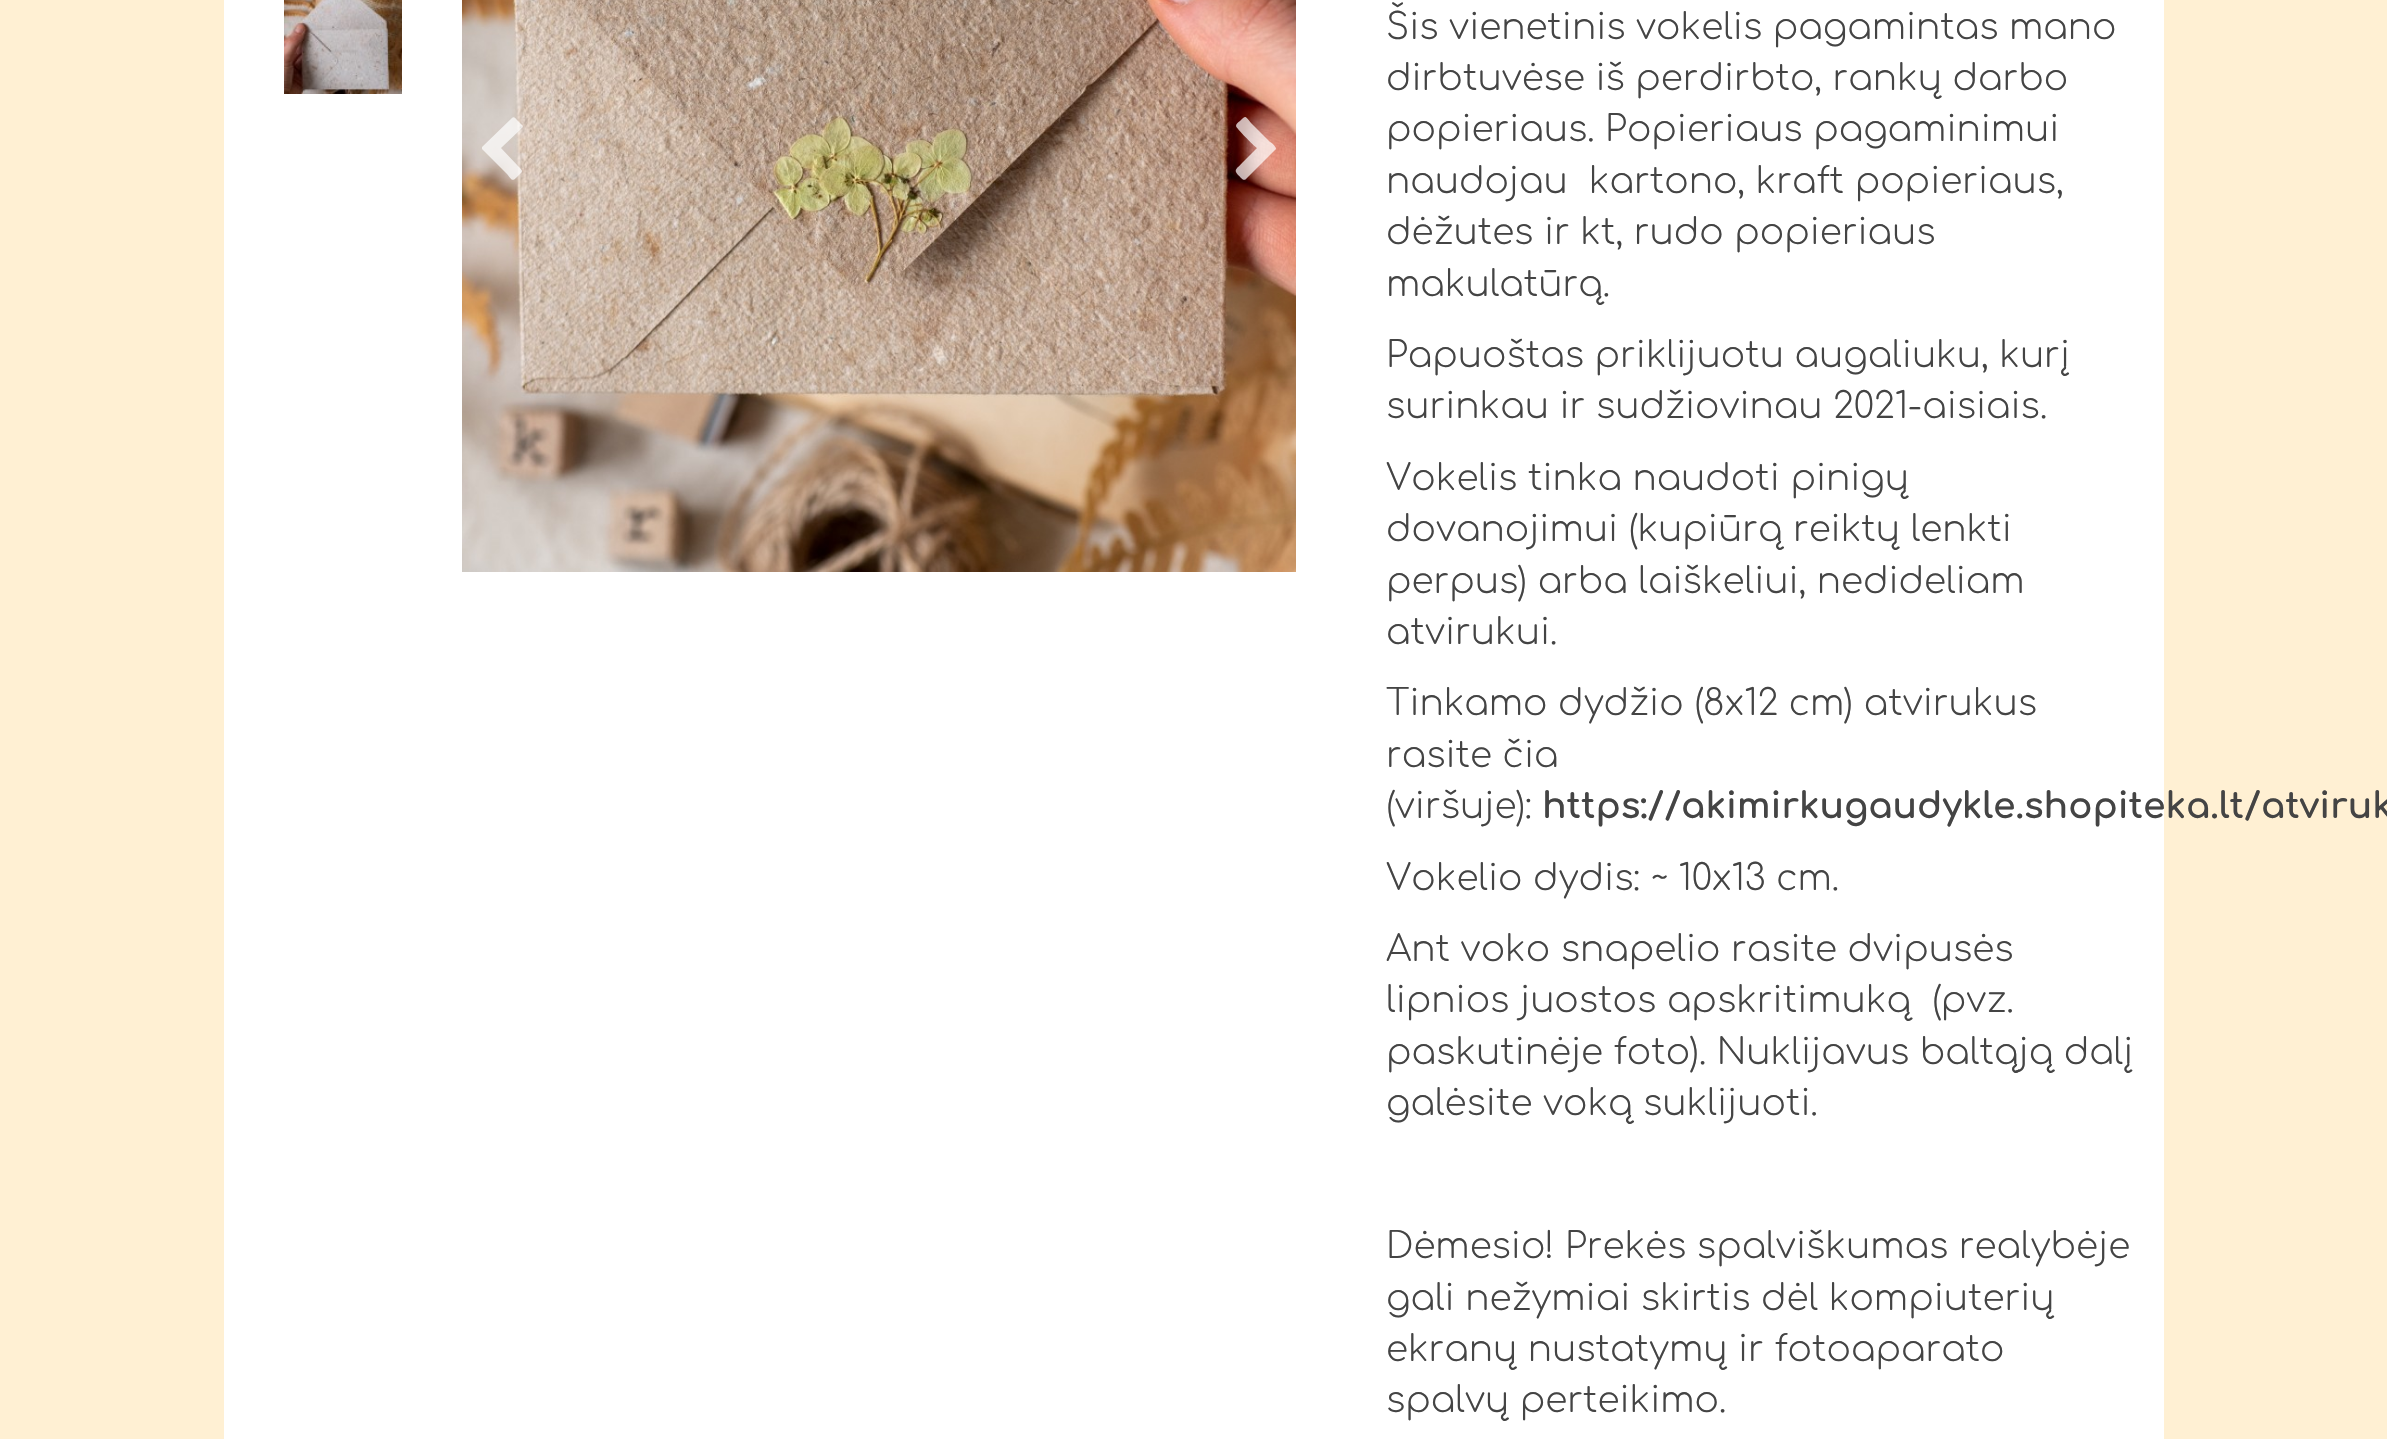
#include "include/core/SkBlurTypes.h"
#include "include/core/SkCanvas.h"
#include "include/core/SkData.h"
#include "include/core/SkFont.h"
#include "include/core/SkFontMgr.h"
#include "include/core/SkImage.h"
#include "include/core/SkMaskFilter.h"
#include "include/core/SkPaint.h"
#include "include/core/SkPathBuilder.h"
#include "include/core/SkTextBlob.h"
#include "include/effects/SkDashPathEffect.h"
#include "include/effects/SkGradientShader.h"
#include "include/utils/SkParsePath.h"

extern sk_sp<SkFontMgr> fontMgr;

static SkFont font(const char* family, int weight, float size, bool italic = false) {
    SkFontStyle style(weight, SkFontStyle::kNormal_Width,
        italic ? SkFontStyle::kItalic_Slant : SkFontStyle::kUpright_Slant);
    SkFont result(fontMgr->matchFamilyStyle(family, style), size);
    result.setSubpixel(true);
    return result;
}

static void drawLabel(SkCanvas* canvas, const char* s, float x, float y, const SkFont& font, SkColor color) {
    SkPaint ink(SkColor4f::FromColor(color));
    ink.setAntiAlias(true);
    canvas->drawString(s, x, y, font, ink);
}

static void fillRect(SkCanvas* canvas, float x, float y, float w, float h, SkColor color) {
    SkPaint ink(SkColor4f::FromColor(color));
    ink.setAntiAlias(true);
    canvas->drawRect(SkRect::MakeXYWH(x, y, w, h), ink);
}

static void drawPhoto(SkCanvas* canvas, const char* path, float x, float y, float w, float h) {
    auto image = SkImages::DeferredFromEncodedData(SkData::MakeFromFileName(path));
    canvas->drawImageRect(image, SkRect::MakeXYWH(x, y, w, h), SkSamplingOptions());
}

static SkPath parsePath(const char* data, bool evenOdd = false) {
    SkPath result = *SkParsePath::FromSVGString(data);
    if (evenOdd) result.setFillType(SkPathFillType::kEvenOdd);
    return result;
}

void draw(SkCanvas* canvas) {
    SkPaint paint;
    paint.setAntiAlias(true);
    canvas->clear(0xFFFFF0D3);
    fillRect(canvas, 224, 0, 1940, 1439, 0xFFFFFFFF);
    drawPhoto(canvas, "assets/img1.png", 284, 0, 118, 94);
    drawPhoto(canvas, "assets/img2.png", 462, 0, 834, 572);
    paint.setColor(0xB3FFFFFF);
    canvas->drawPath(parsePath("M522 128L501 148L518 166C524 172 523 171 517 177C512 182 512 180 507 174L482 149V147L512 118C514 116 516 119 517 120L522 125C523 126 523 127 522 128Z"), paint);
    canvas->drawPath(parsePath("M1275 150L1246 179C1243 182 1240 176 1238 175C1233 169 1237 169 1243 162L1257 148C1254 146 1236 128 1236 126C1236 124 1238 122 1240 121C1246 115 1245 116 1251 123L1270 142C1271 142 1276 146 1276 149Z"), paint);
    SkFont font1 = font("Comfortaa", 300, 36);
    drawLabel(canvas, "Šis vienetinis vokelis pagamintas mano", 1386, 39, font1, 0xFF444444);
    drawLabel(canvas, "dirbtuvėse iš perdirbto, rankų darbo", 1386, 90, font1, 0xFF444444);
    drawLabel(canvas, "popieriaus. Popieriaus pagaminimui", 1386, 141, font1, 0xFF444444);
    drawLabel(canvas, "naudojau  kartono, kraft popieriaus,", 1386, 193, font1, 0xFF444444);
    drawLabel(canvas, "dėžutes ir kt, rudo popieriaus", 1386, 244, font1, 0xFF444444);
    drawLabel(canvas, "makulatūrą.", 1386, 296, font1, 0xFF444444);
    drawLabel(canvas, "Papuoštas priklijuotu augaliuku, kurį", 1386, 367, font1, 0xFF444444);
    drawLabel(canvas, "surinkau ir sudžiovinau 2021-aisiais.", 1386, 418, font1, 0xFF444444);
    drawLabel(canvas, "Vokelis tinka naudoti pinigų", 1386, 490, font1, 0xFF444444);
    drawLabel(canvas, "dovanojimui (kupiūrą reiktų lenkti", 1386, 541, font1, 0xFF444444);
    drawLabel(canvas, "perpus) arba laiškeliui, nedideliam", 1386, 593, font1, 0xFF444444);
    drawLabel(canvas, "atvirukui.", 1386, 644, font1, 0xFF444444);
    drawLabel(canvas, "Tinkamo dydžio (8x12 cm) atvirukus", 1386, 715, font1, 0xFF444444);
    drawLabel(canvas, "rasite čia", 1386, 767, font1, 0xFF444444);
    drawLabel(canvas, "(viršuje):", 1386, 818, font1, 0xFF444444);
    SkFont font2 = font("Comfortaa", 700, 36);
    drawLabel(canvas, "https://akimirkugaudykle.shopiteka.lt/atviruk", 1542, 818, font2, 0xFF444444);
    drawLabel(canvas, "Vokelio dydis: ~ 10x13 cm.", 1386, 890, font1, 0xFF444444);
    drawLabel(canvas, "Ant voko snapelio rasite dvipusės", 1386, 961, font1, 0xFF444444);
    drawLabel(canvas, "lipnios juostos apskritimuką  (pvz.", 1386, 1012, font1, 0xFF444444);
    drawLabel(canvas, "paskutinėje foto). Nuklijavus baltąją dalį", 1386, 1064, font1, 0xFF444444);
    drawLabel(canvas, "galėsite voką suklijuoti.", 1386, 1115, font1, 0xFF444444);
    drawLabel(canvas, "Dėmesio! Prekės spalviškumas realybėje", 1386, 1258, font1, 0xFF444444);
    drawLabel(canvas, "gali nežymiai skirtis dėl kompiuterių", 1386, 1310, font1, 0xFF444444);
    drawLabel(canvas, "ekranų nustatymų ir fotoaparato", 1386, 1361, font1, 0xFF444444);
    drawLabel(canvas, "spalvų perteikimo.", 1386, 1412, font1, 0xFF444444);
}
